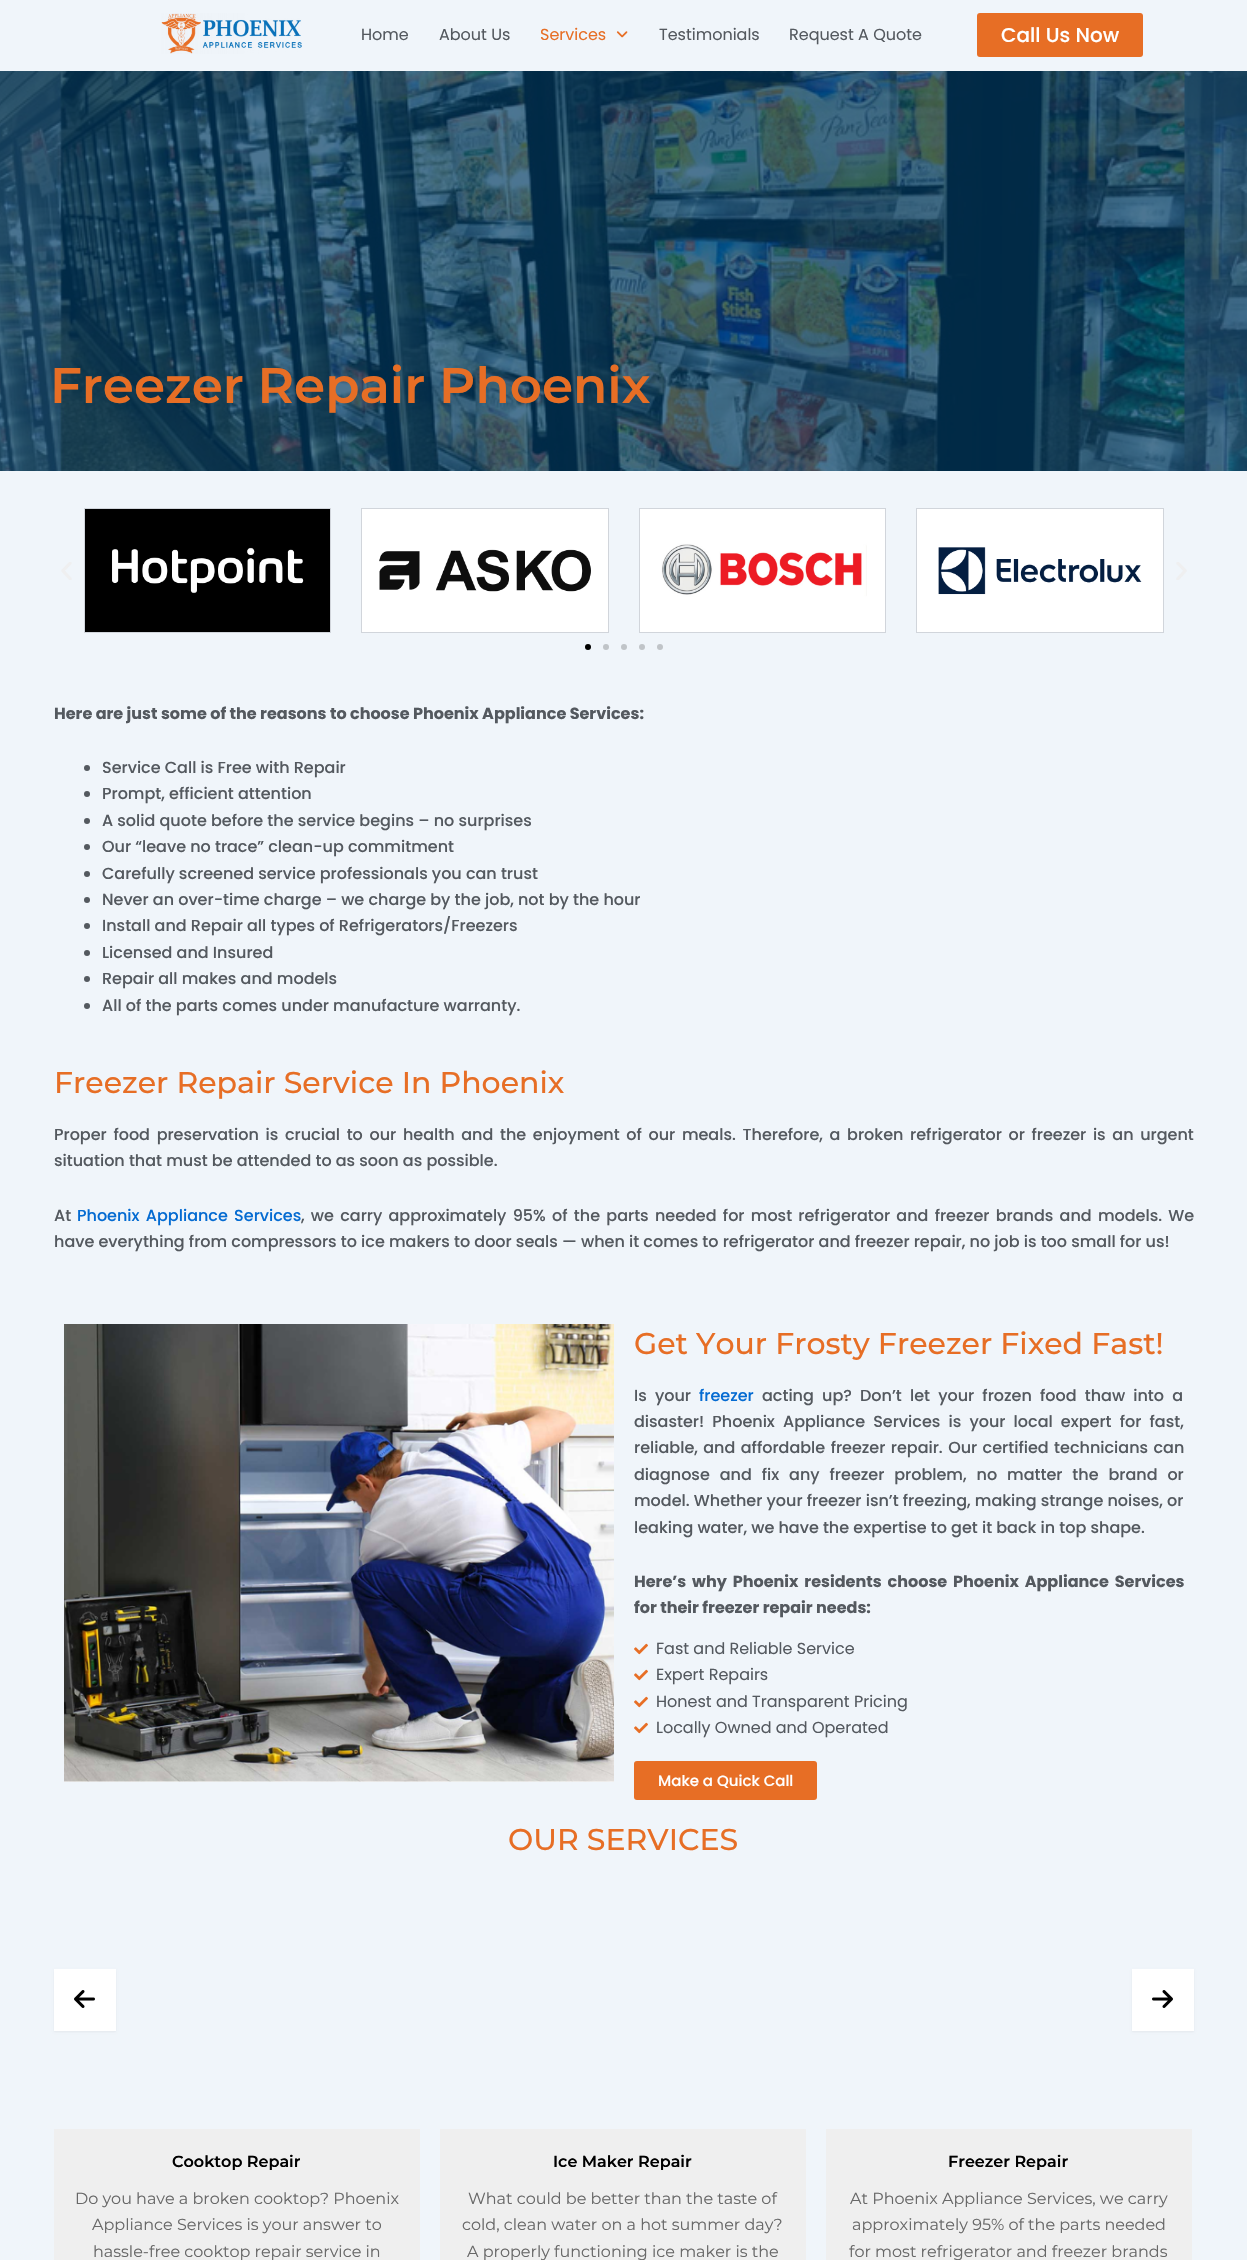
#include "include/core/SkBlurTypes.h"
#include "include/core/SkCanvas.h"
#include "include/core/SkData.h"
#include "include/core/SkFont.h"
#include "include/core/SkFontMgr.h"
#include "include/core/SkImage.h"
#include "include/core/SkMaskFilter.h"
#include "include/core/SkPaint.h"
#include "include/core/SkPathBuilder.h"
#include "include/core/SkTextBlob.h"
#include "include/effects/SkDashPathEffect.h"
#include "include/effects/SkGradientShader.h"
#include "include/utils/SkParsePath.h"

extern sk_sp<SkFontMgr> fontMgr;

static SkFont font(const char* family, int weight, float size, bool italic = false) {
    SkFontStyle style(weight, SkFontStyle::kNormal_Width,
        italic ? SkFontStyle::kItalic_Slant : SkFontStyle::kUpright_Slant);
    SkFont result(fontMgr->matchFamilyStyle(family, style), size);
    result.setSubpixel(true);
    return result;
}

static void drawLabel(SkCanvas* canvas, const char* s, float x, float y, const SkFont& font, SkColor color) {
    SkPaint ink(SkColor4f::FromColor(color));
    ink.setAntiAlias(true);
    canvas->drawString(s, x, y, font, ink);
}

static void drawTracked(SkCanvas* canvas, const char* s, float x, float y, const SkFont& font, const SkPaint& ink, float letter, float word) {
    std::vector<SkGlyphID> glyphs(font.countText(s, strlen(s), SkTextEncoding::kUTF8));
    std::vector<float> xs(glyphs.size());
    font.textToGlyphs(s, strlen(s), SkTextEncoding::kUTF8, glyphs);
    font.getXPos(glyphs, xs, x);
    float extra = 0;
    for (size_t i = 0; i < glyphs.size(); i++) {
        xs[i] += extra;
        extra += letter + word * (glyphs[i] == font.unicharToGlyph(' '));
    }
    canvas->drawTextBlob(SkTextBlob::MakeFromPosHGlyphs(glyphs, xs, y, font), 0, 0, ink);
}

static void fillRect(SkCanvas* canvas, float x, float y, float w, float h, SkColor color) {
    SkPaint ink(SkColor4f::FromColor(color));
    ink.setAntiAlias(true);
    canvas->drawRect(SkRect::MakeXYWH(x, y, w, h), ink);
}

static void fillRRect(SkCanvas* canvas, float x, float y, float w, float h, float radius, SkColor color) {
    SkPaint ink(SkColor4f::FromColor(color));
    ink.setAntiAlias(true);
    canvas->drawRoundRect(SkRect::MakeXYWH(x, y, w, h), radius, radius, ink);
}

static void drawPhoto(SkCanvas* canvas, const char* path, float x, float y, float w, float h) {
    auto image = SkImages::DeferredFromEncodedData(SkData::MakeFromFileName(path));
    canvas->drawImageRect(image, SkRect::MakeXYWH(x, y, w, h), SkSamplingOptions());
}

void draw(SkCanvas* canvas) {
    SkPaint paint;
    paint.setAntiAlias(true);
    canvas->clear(0xFFF0F5FA);
    drawPhoto(canvas, "assets/img1.png", 161, 13, 141, 41);
    SkFont font1 = font("Poppins", 400, 16);
    drawLabel(canvas, "Home", 361, 40, font1, 0xFF54595F);
    drawLabel(canvas, "About Us", 439, 40, font1, 0xFF54595F);
    drawLabel(canvas, "Services", 540, 40, font1, 0xFFE76E25);
    drawPhoto(canvas, "assets/img2.png", 616, 31, 12, 7);
    drawLabel(canvas, "Testimonials", 659, 40, font1, 0xFF54595F);
    drawLabel(canvas, "Request A Quote", 789, 40, font1, 0xFF54595F);
    fillRRect(canvas, 977, 13, 166, 44, 3, 0xFFE76E25);
    SkFont font2 = font("Poppins", 500, 20);
    drawLabel(canvas, "Call Us Now", 1001, 42, font2, 0xFFFFFFFF);
    drawPhoto(canvas, "assets/img3.png", 0, 71, 1247, 400);
    SkFont font3 = font("Montserrat", 600, 50);
    drawLabel(canvas, "Freezer Repair Phoenix", 50, 403, font3, 0xFFE76E25);
    drawPhoto(canvas, "assets/img4.png", 61, 562, 11, 18);
    paint.setStroke(true);
    paint.setStrokeWidth(1);
    paint.setColor(0xFFD1D5DB);
    canvas->drawRect(SkRect::MakeXYWH(84.5f, 508.5f, 246, 124), paint);
    drawPhoto(canvas, "assets/img5.png", 85, 509, 245, 123);
    canvas->drawRect(SkRect::MakeXYWH(361.5f, 508.5f, 247, 124), paint);
    drawPhoto(canvas, "assets/img6.png", 362, 509, 246, 123);
    canvas->drawRect(SkRect::MakeXYWH(639.5f, 508.5f, 246, 124), paint);
    drawPhoto(canvas, "assets/img7.png", 640, 509, 245, 123);
    canvas->drawRect(SkRect::MakeXYWH(916.5f, 508.5f, 247, 124), paint);
    drawPhoto(canvas, "assets/img8.png", 917, 509, 246, 123);
    drawPhoto(canvas, "assets/img9.png", 1176, 562, 11, 18);
    paint.setStroke(false);
    paint.setColor(0xFF000000);
    canvas->drawCircle(588, 647, 3, paint);
    paint.setColor(0xFFC0C4C8);
    canvas->drawCircle(606, 647, 3, paint);
    canvas->drawCircle(624, 647, 3, paint);
    canvas->drawCircle(642, 647, 3, paint);
    canvas->drawCircle(660, 647, 3, paint);
    SkFont font4 = font("Poppins", 700, 16);
    drawLabel(canvas, "Here are just some of the reasons to choose Phoenix Appliance Services:", 54, 719, font4, 0xFF54595F);
    paint.setColor(0xFF54595F);
    canvas->drawCircle(87, 768, 3, paint);
    SkFont font5 = font("Poppins", 500, 16);
    drawLabel(canvas, "Service Call is Free with Repair", 102, 773, font5, 0xFF54595F);
    canvas->drawCircle(87, 794, 3, paint);
    drawLabel(canvas, "Prompt, efficient attention", 102, 799, font5, 0xFF54595F);
    canvas->drawCircle(87, 821, 3, paint);
    drawLabel(canvas, "A solid quote before the service begins – no surprises", 102, 826, font5, 0xFF54595F);
    canvas->drawCircle(87, 847, 3, paint);
    drawLabel(canvas, "Our “leave no trace” clean-up commitment", 102, 852, font5, 0xFF54595F);
    canvas->drawCircle(87, 874, 3, paint);
    drawLabel(canvas, "Carefully screened service professionals you can trust", 102, 879, font5, 0xFF54595F);
    canvas->drawCircle(87, 900, 3, paint);
    drawLabel(canvas, "Never an over-time charge – we charge by the job, not by the hour", 102, 905, font5, 0xFF54595F);
    canvas->drawCircle(87, 926, 3, paint);
    drawLabel(canvas, "Install and Repair all types of Refrigerators/Freezers", 102, 931, font5, 0xFF54595F);
    canvas->drawCircle(87, 953, 3, paint);
    drawLabel(canvas, "Licensed and Insured", 102, 958, font5, 0xFF54595F);
    canvas->drawCircle(87, 979, 3, paint);
    drawLabel(canvas, "Repair all makes and models", 102, 984, font5, 0xFF54595F);
    canvas->drawCircle(87, 1006, 3, paint);
    drawLabel(canvas, "All of the parts comes under manufacture warranty.", 102, 1011, font5, 0xFF54595F);
    SkFont font6 = font("Montserrat", 500, 30);
    drawLabel(canvas, "Freezer Repair Service In Phoenix", 54, 1093, font6, 0xFFE76E25);
    drawTracked(canvas, "Proper food preservation is crucial to our health and the enjoyment of our meals. Therefore, a broken refrigerator or freezer is an urgent", 54, 1140, font5, paint, 0, 2.5f);
    drawLabel(canvas, "situation that must be attended to as soon as possible.", 54, 1166, font5, 0xFF54595F);
    drawLabel(canvas, "At", 54, 1221, font5, 0xFF54595F);
    paint.setColor(0xFF046BD2);
    drawTracked(canvas, "Phoenix Appliance Services", 77, 1221, font5, paint, 0, 2.1f);
    paint.setColor(0xFF54595F);
    drawTracked(canvas, ", we carry approximately 95% of the parts needed for most refrigerator and freezer brands and models. We", 301, 1221, font5, paint, 0, 2.1f);
    drawLabel(canvas, "have everything from compressors to ice makers to door seals — when it comes to refrigerator and freezer repair, no job is too small for us!", 54, 1247, font5, 0xFF54595F);
    drawPhoto(canvas, "assets/img10.png", 64, 1324, 550, 458);
    drawLabel(canvas, "Get Your Frosty Freezer Fixed Fast!", 634, 1354, font6, 0xFFE76E25);
    drawTracked(canvas, "Is your", 634, 1401, font5, paint, 0, 4);
    drawLabel(canvas, "freezer", 699, 1401, font5, 0xFF046BD2);
    drawTracked(canvas, "acting up? Don’t let your frozen food thaw into a", 762, 1401, font5, paint, 0, 4);
    drawTracked(canvas, "disaster! Phoenix Appliance Services is your local expert for fast,", 634, 1427, font5, paint, 0, 4);
    drawTracked(canvas, "reliable, and affordable freezer repair. Our certified technicians can", 634, 1453, font5, paint, 0, 1.25f);
    drawTracked(canvas, "diagnose and fix any freezer problem, no matter the brand or", 634, 1480, font5, paint, 0, 5.75f);
    drawLabel(canvas, "model. Whether your freezer isn’t freezing, making strange noises, or", 634, 1506, font5, 0xFF54595F);
    drawLabel(canvas, "leaking water, we have the expertise to get it back in top shape.", 634, 1533, font5, 0xFF54595F);
    drawTracked(canvas, "Here’s why Phoenix residents choose Phoenix Appliance Services", 634, 1587, font4, paint, 0, 2.5f);
    drawLabel(canvas, "for their freezer repair needs:", 634, 1613, font4, 0xFF54595F);
    drawPhoto(canvas, "assets/img11.png", 634, 1643, 14, 12);
    drawLabel(canvas, "Fast and Reliable Service", 656, 1654, font1, 0xFF54595F);
    drawPhoto(canvas, "assets/img11.png", 634, 1669, 14, 12);
    drawLabel(canvas, "Expert Repairs", 656, 1680, font1, 0xFF54595F);
    drawPhoto(canvas, "assets/img11.png", 634, 1696, 14, 12);
    drawLabel(canvas, "Honest and Transparent Pricing", 656, 1707, font1, 0xFF54595F);
    drawPhoto(canvas, "assets/img11.png", 634, 1722, 14, 12);
    drawLabel(canvas, "Locally Owned and Operated", 656, 1733, font1, 0xFF54595F);
    fillRRect(canvas, 634, 1761, 183, 39, 3, 0xFFE76E25);
    SkFont font7 = font("Poppins", 500, 15);
    drawLabel(canvas, "Make a Quick Call", 658, 1786, font7, 0xFFFFFFFF);
    drawLabel(canvas, "OUR SERVICES", 508, 1850, font6, 0xFFE76E25);
    paint.setColor(0x0D000000);
    paint.setMaskFilter(SkMaskFilter::MakeBlur(kNormal_SkBlurStyle, 1));
    canvas->drawRect(SkRect::MakeXYWH(54, 1970, 62, 62), paint);
    paint.setMaskFilter(nullptr);
    fillRect(canvas, 54, 1969, 62, 62, 0xFFFFFFFF);
    drawPhoto(canvas, "assets/img12.png", 74, 1990, 21, 18);
    paint.setMaskFilter(SkMaskFilter::MakeBlur(kNormal_SkBlurStyle, 1));
    canvas->drawRect(SkRect::MakeXYWH(1132, 1970, 62, 62), paint);
    paint.setMaskFilter(nullptr);
    fillRect(canvas, 1132, 1969, 62, 62, 0xFFFFFFFF);
    drawPhoto(canvas, "assets/img13.png", 1152, 1990, 21, 18);
    fillRect(canvas, 54, 2129, 366, 131, 0xFFEFEFEF);
    SkFont font8 = font("Montserrat", 600, 16);
    drawLabel(canvas, "Cooktop Repair", 172, 2167, font8, 0xFF000000);
    SkFont font9 = font("Montserrat", 400, 16);
    drawLabel(canvas, "Do you have a broken cooktop? Phoenix", 75, 2204, font9, 0xFF686868);
    drawLabel(canvas, "Appliance Services is your answer to", 92, 2230, font9, 0xFF686868);
    drawLabel(canvas, "hassle-free cooktop repair service in", 93, 2257, font9, 0xFF686868);
    fillRect(canvas, 440, 2129, 366, 131, 0xFFEFEFEF);
    drawLabel(canvas, "Ice Maker Repair", 553, 2167, font8, 0xFF000000);
    drawLabel(canvas, "What could be better than the taste of", 468, 2204, font9, 0xFF686868);
    drawLabel(canvas, "cold, clean water on a hot summer day?", 462, 2230, font9, 0xFF686868);
    drawLabel(canvas, "A properly functioning ice maker is the", 467, 2257, font9, 0xFF686868);
    fillRect(canvas, 826, 2129, 366, 131, 0xFFEFEFEF);
    drawLabel(canvas, "Freezer Repair", 948, 2167, font8, 0xFF000000);
    drawLabel(canvas, "At Phoenix Appliance Services, we carry", 850, 2204, font9, 0xFF686868);
    drawLabel(canvas, "approximately 95% of the parts needed", 852, 2230, font9, 0xFF686868);
    drawLabel(canvas, "for most refrigerator and freezer brands", 849, 2257, font9, 0xFF686868);
}
